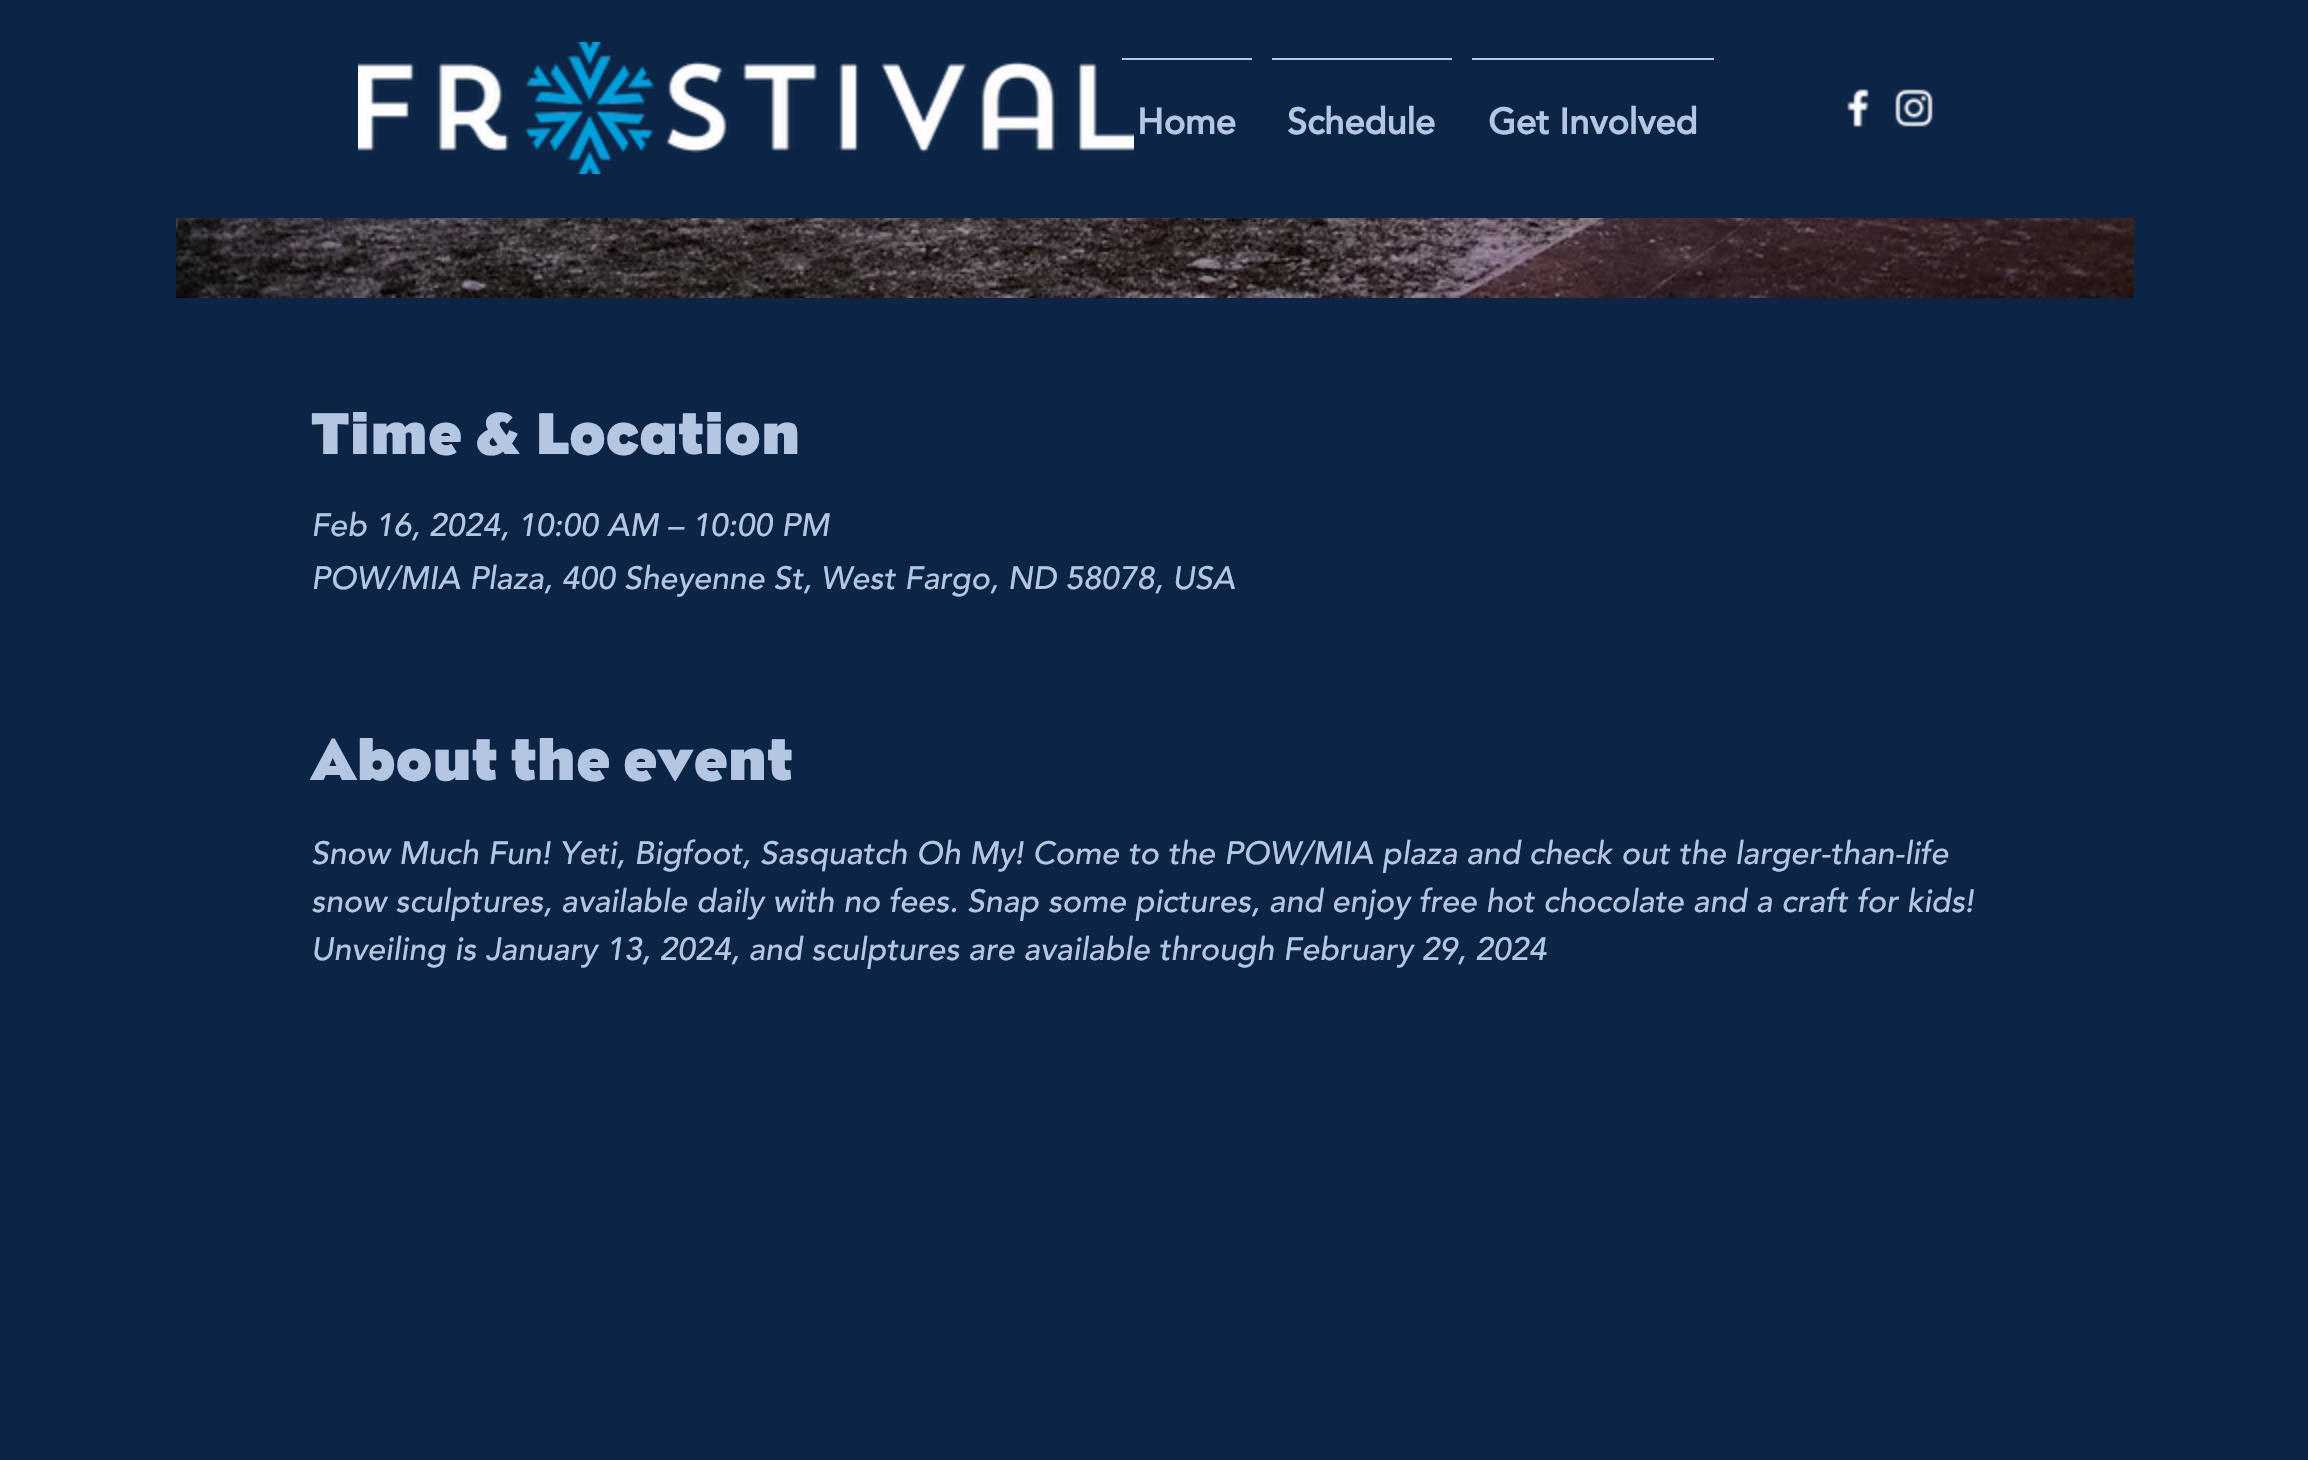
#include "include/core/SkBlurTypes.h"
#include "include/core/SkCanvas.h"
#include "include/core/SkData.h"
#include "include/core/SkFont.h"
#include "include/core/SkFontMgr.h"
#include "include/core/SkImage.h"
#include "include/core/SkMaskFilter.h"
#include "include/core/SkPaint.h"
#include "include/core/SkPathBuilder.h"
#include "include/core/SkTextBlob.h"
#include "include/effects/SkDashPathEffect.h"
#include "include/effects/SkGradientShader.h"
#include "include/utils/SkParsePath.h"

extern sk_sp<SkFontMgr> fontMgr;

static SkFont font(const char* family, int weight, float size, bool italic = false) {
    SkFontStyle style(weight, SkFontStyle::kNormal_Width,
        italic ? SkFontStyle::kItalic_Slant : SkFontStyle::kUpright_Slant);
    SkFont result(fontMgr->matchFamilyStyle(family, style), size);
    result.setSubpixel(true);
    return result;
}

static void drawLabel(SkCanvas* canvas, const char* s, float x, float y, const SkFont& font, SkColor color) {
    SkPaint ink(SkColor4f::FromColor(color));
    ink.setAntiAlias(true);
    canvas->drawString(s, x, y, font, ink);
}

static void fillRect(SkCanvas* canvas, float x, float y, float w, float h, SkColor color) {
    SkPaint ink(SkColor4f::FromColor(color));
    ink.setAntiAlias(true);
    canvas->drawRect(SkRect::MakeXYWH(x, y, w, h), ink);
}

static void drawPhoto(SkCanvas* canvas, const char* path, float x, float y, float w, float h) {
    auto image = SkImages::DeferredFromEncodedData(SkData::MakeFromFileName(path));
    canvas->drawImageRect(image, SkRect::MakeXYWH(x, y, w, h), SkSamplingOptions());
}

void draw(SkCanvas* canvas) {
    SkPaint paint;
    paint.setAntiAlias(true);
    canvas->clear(0xFF0C2446);
    drawPhoto(canvas, "assets/img1.png", 358, 42, 776, 132);
    fillRect(canvas, 1122, 58, 130, 2, 0xFFB4C6E2);
    SkFont font1 = font("Avenir", 700, 36);
    drawLabel(canvas, "Home", 1137, 134, font1, 0xFFB4C6E2);
    fillRect(canvas, 1272, 58, 180, 2, 0xFFB4C6E2);
    drawLabel(canvas, "Schedule", 1287, 134, font1, 0xFFB4C6E2);
    fillRect(canvas, 1472, 58, 242, 2, 0xFFB4C6E2);
    drawLabel(canvas, "Get Involved", 1488, 134, font1, 0xFFB4C6E2);
    drawPhoto(canvas, "assets/img2.png", 1847, 88, 22, 40);
    drawPhoto(canvas, "assets/img3.png", 1895, 89, 38, 38);
    drawPhoto(canvas, "assets/img4.png", 176, 218, 1958, 80);
    SkFont font2 = font("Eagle", 700, 60);
    drawLabel(canvas, "Time & Location", 311, 454, font2, 0xFFB4C6E2);
    SkFont font3 = font("Avenir", 500, 32, true);
    drawLabel(canvas, "Feb 16, 2024, 10:00 AM – 10:00 PM", 311, 536, font3, 0xFFB4C6E2);
    drawLabel(canvas, "POW/MIA Plaza, 400 Sheyenne St, West Fargo, ND 58078, USA", 311, 589, font3, 0xFFB4C6E2);
    drawLabel(canvas, "About the event", 311, 780, font2, 0xFFB4C6E2);
    drawLabel(canvas, "Snow Much Fun! Yeti, Bigfoot, Sasquatch Oh My! Come to the POW/MIA plaza and check out the larger-than-life", 311, 864, font3, 0xFFB4C6E2);
    drawLabel(canvas, "snow sculptures, available daily with no fees. Snap some pictures, and enjoy free hot chocolate and a craft for kids!", 311, 912, font3, 0xFFB4C6E2);
    drawLabel(canvas, "Unveiling is January 13, 2024, and sculptures are available through February 29, 2024", 311, 960, font3, 0xFFB4C6E2);
}
